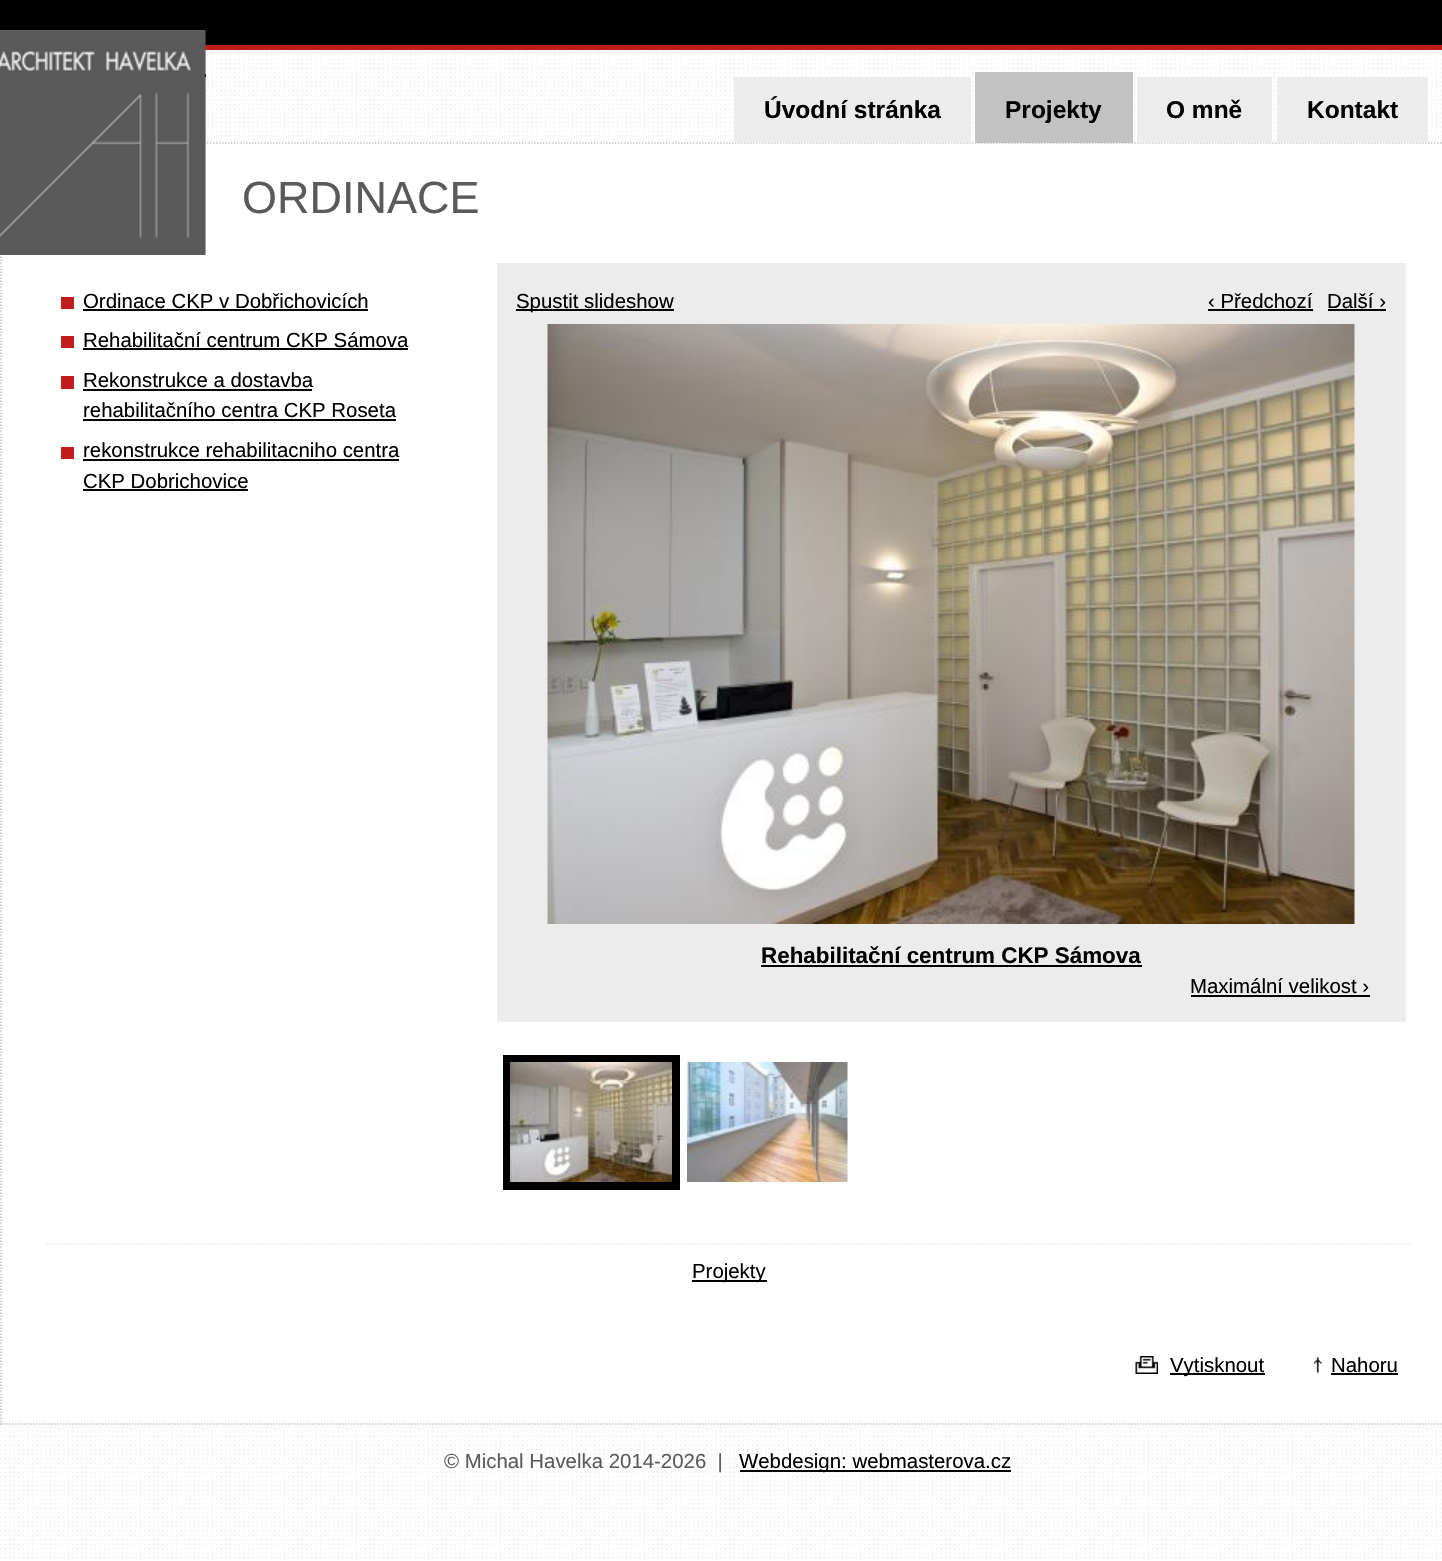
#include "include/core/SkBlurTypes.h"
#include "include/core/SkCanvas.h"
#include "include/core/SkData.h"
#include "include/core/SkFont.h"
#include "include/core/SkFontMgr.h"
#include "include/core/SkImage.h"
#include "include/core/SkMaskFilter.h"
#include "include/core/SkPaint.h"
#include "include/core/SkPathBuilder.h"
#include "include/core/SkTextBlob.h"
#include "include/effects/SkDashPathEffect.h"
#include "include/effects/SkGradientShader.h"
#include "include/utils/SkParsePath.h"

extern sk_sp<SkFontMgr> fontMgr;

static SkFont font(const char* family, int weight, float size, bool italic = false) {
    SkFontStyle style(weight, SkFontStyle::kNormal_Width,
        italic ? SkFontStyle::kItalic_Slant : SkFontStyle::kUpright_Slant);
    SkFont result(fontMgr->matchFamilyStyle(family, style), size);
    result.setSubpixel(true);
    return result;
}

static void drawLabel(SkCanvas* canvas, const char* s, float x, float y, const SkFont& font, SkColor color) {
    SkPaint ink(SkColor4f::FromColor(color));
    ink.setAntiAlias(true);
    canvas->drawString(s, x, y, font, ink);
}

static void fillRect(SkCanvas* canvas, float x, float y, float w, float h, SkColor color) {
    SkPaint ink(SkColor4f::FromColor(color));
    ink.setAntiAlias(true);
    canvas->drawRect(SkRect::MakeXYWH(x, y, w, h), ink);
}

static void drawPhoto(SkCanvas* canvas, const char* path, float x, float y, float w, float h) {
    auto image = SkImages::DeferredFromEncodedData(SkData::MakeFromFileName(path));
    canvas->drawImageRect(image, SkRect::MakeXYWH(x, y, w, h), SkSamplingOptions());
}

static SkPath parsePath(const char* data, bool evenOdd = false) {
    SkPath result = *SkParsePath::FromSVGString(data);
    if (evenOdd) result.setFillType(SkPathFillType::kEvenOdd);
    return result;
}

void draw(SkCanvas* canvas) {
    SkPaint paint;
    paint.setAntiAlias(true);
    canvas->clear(0xFFFFFFFF);
    drawPhoto(canvas, "assets/img1.png", 0, 50, 1442, 1509);
    fillRect(canvas, 203, 45, 1239, 5, 0xFFC11D1D);
    fillRect(canvas, 0, 0, 1442, 45, 0xFF000000);
    fillRect(canvas, 0, 143, 1442, 1281, 0xFFFFFFFF);
    paint.setStroke(true);
    paint.setStrokeWidth(1.5f);
    paint.setColor(0xFFC3C3C3);
    paint.setPathEffect(SkDashPathEffect::Make({{1.5f, 1.5f}}, 0));
    canvas->drawPath(parsePath("M0 143H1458"), paint);
    paint.setPathEffect(nullptr);
    paint.setPathEffect(SkDashPathEffect::Make({{1.5f, 1.5f}}, 0));
    canvas->drawPath(parsePath("M0 1424H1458"), paint);
    paint.setPathEffect(nullptr);
    paint.setPathEffect(SkDashPathEffect::Make({{1.5f, 1.5f}}, 0));
    canvas->drawPath(parsePath("M1 142.5V1425"), paint);
    paint.setPathEffect(nullptr);
    drawPhoto(canvas, "assets/img2.png", 0, 30, 206, 225);
    fillRect(canvas, 203, 74, 3, 3, 0xFF000000);
    drawPhoto(canvas, "assets/img3.png", 0, 30, 206, 225);
    fillRect(canvas, 734, 77, 237, 66, 0xFFECECEC);
    SkFont font1 = font("Liberation Sans", 700, 24.5f);
    drawLabel(canvas, "Úvodní stránka", 764, 118, font1, 0xFF000000);
    fillRect(canvas, 975, 72, 158, 71, 0xFFC2C2C2);
    drawLabel(canvas, "Projekty", 1005, 118, font1, 0xFF000000);
    fillRect(canvas, 1137, 77, 135, 66, 0xFFECECEC);
    drawLabel(canvas, "O mně", 1166, 118, font1, 0xFF000000);
    fillRect(canvas, 1277, 77, 151, 66, 0xFFECECEC);
    drawLabel(canvas, "Kontakt", 1307, 118, font1, 0xFF000000);
    SkFont font2 = font("Liberation Sans", 400, 45);
    drawLabel(canvas, "ORDINACE", 242, 213, font2, 0xFF5A5A5A);
    fillRect(canvas, 61, 297, 13, 12, 0xFFC11D1D);
    SkFont font3 = font("Liberation Sans", 400, 20.4f);
    drawLabel(canvas, "Ordinace CKP v Dobřichovicích", 83, 308, font3, 0xFF000000);
    fillRect(canvas, 83, 309, 285, 2, 0xFF000000);
    fillRect(canvas, 61, 336, 13, 12, 0xFFC11D1D);
    drawLabel(canvas, "Rehabilitační centrum CKP Sámova", 83, 347, font3, 0xFF000000);
    fillRect(canvas, 83, 348, 325, 2, 0xFF000000);
    fillRect(canvas, 61, 376, 13, 13, 0xFFC11D1D);
    drawLabel(canvas, "Rekonstrukce a dostavba", 83, 387, font3, 0xFF000000);
    fillRect(canvas, 83, 389, 229, 2, 0xFF000000);
    drawLabel(canvas, "rehabilitačního centra CKP Roseta", 83, 417, font3, 0xFF000000);
    fillRect(canvas, 83, 419, 313, 2, 0xFF000000);
    fillRect(canvas, 61, 447, 13, 12, 0xFFC11D1D);
    drawLabel(canvas, "rekonstrukce rehabilitacniho centra", 83, 457, font3, 0xFF000000);
    fillRect(canvas, 83, 459, 316, 2, 0xFF000000);
    drawLabel(canvas, "CKP Dobrichovice", 83, 488, font3, 0xFF000000);
    fillRect(canvas, 83, 489, 165, 2, 0xFF000000);
    fillRect(canvas, 497, 263, 909, 759, 0xFFECECEC);
    fillRect(canvas, 516, 309, 158, 2, 0xFF000000);
    drawLabel(canvas, "Spustit slideshow", 516, 308, font3, 0xFF000000);
    drawLabel(canvas, "‹ Předchozí", 1208, 308, font3, 0xFF000000);
    fillRect(canvas, 1208, 309, 105, 2, 0xFF000000);
    drawLabel(canvas, "Další ›", 1327, 308, font3, 0xFF000000);
    fillRect(canvas, 1328, 309, 58, 2, 0xFF000000);
    drawPhoto(canvas, "assets/img4.png", 547, 324, 808, 600);
    SkFont font4 = font("Liberation Sans", 700, 22.4f);
    drawLabel(canvas, "Rehabilitační centrum CKP Sámova", 761, 963, font4, 0xFF000000);
    fillRect(canvas, 761, 965, 381, 2, 0xFF000000);
    drawLabel(canvas, "Maximální velikost ›", 1190, 993, font3, 0xFF000000);
    fillRect(canvas, 1191, 995, 179, 2, 0xFF000000);
    fillRect(canvas, 503, 1055, 177, 135, 0xFF000000);
    drawPhoto(canvas, "assets/img5.png", 510, 1062, 162, 120);
    drawPhoto(canvas, "assets/img6.png", 687, 1062, 161, 120);
    paint.setColor(0xFFECECEC);
    paint.setPathEffect(SkDashPathEffect::Make({{1.5f, 1.5f}}, 0));
    canvas->drawPath(parsePath("M46.5 1244H1411.5"), paint);
    paint.setPathEffect(nullptr);
    fillRect(canvas, 692, 1280, 75, 2, 0xFF000000);
    drawLabel(canvas, "Projekty", 692, 1278, font3, 0xFF000000);
    drawPhoto(canvas, "assets/img7.png", 1135, 1356, 23, 18);
    fillRect(canvas, 1170, 1373, 95, 2, 0xFF000000);
    drawLabel(canvas, "Vytisknout", 1170, 1372, font3, 0xFF000000);
    drawPhoto(canvas, "assets/img8.png", 1313, 1357, 9, 16);
    drawLabel(canvas, "Nahoru", 1331, 1372, font3, 0xFF000000);
    fillRect(canvas, 1331, 1373, 67, 2, 0xFF000000);
    drawLabel(canvas, "© Michal Havelka 2014-2026  |", 444, 1468, font3, 0xFF5A5A5A);
    fillRect(canvas, 740, 1470, 271, 2, 0xFF000000);
    drawLabel(canvas, "Webdesign: webmasterova.cz", 739, 1468, font3, 0xFF000000);
}
